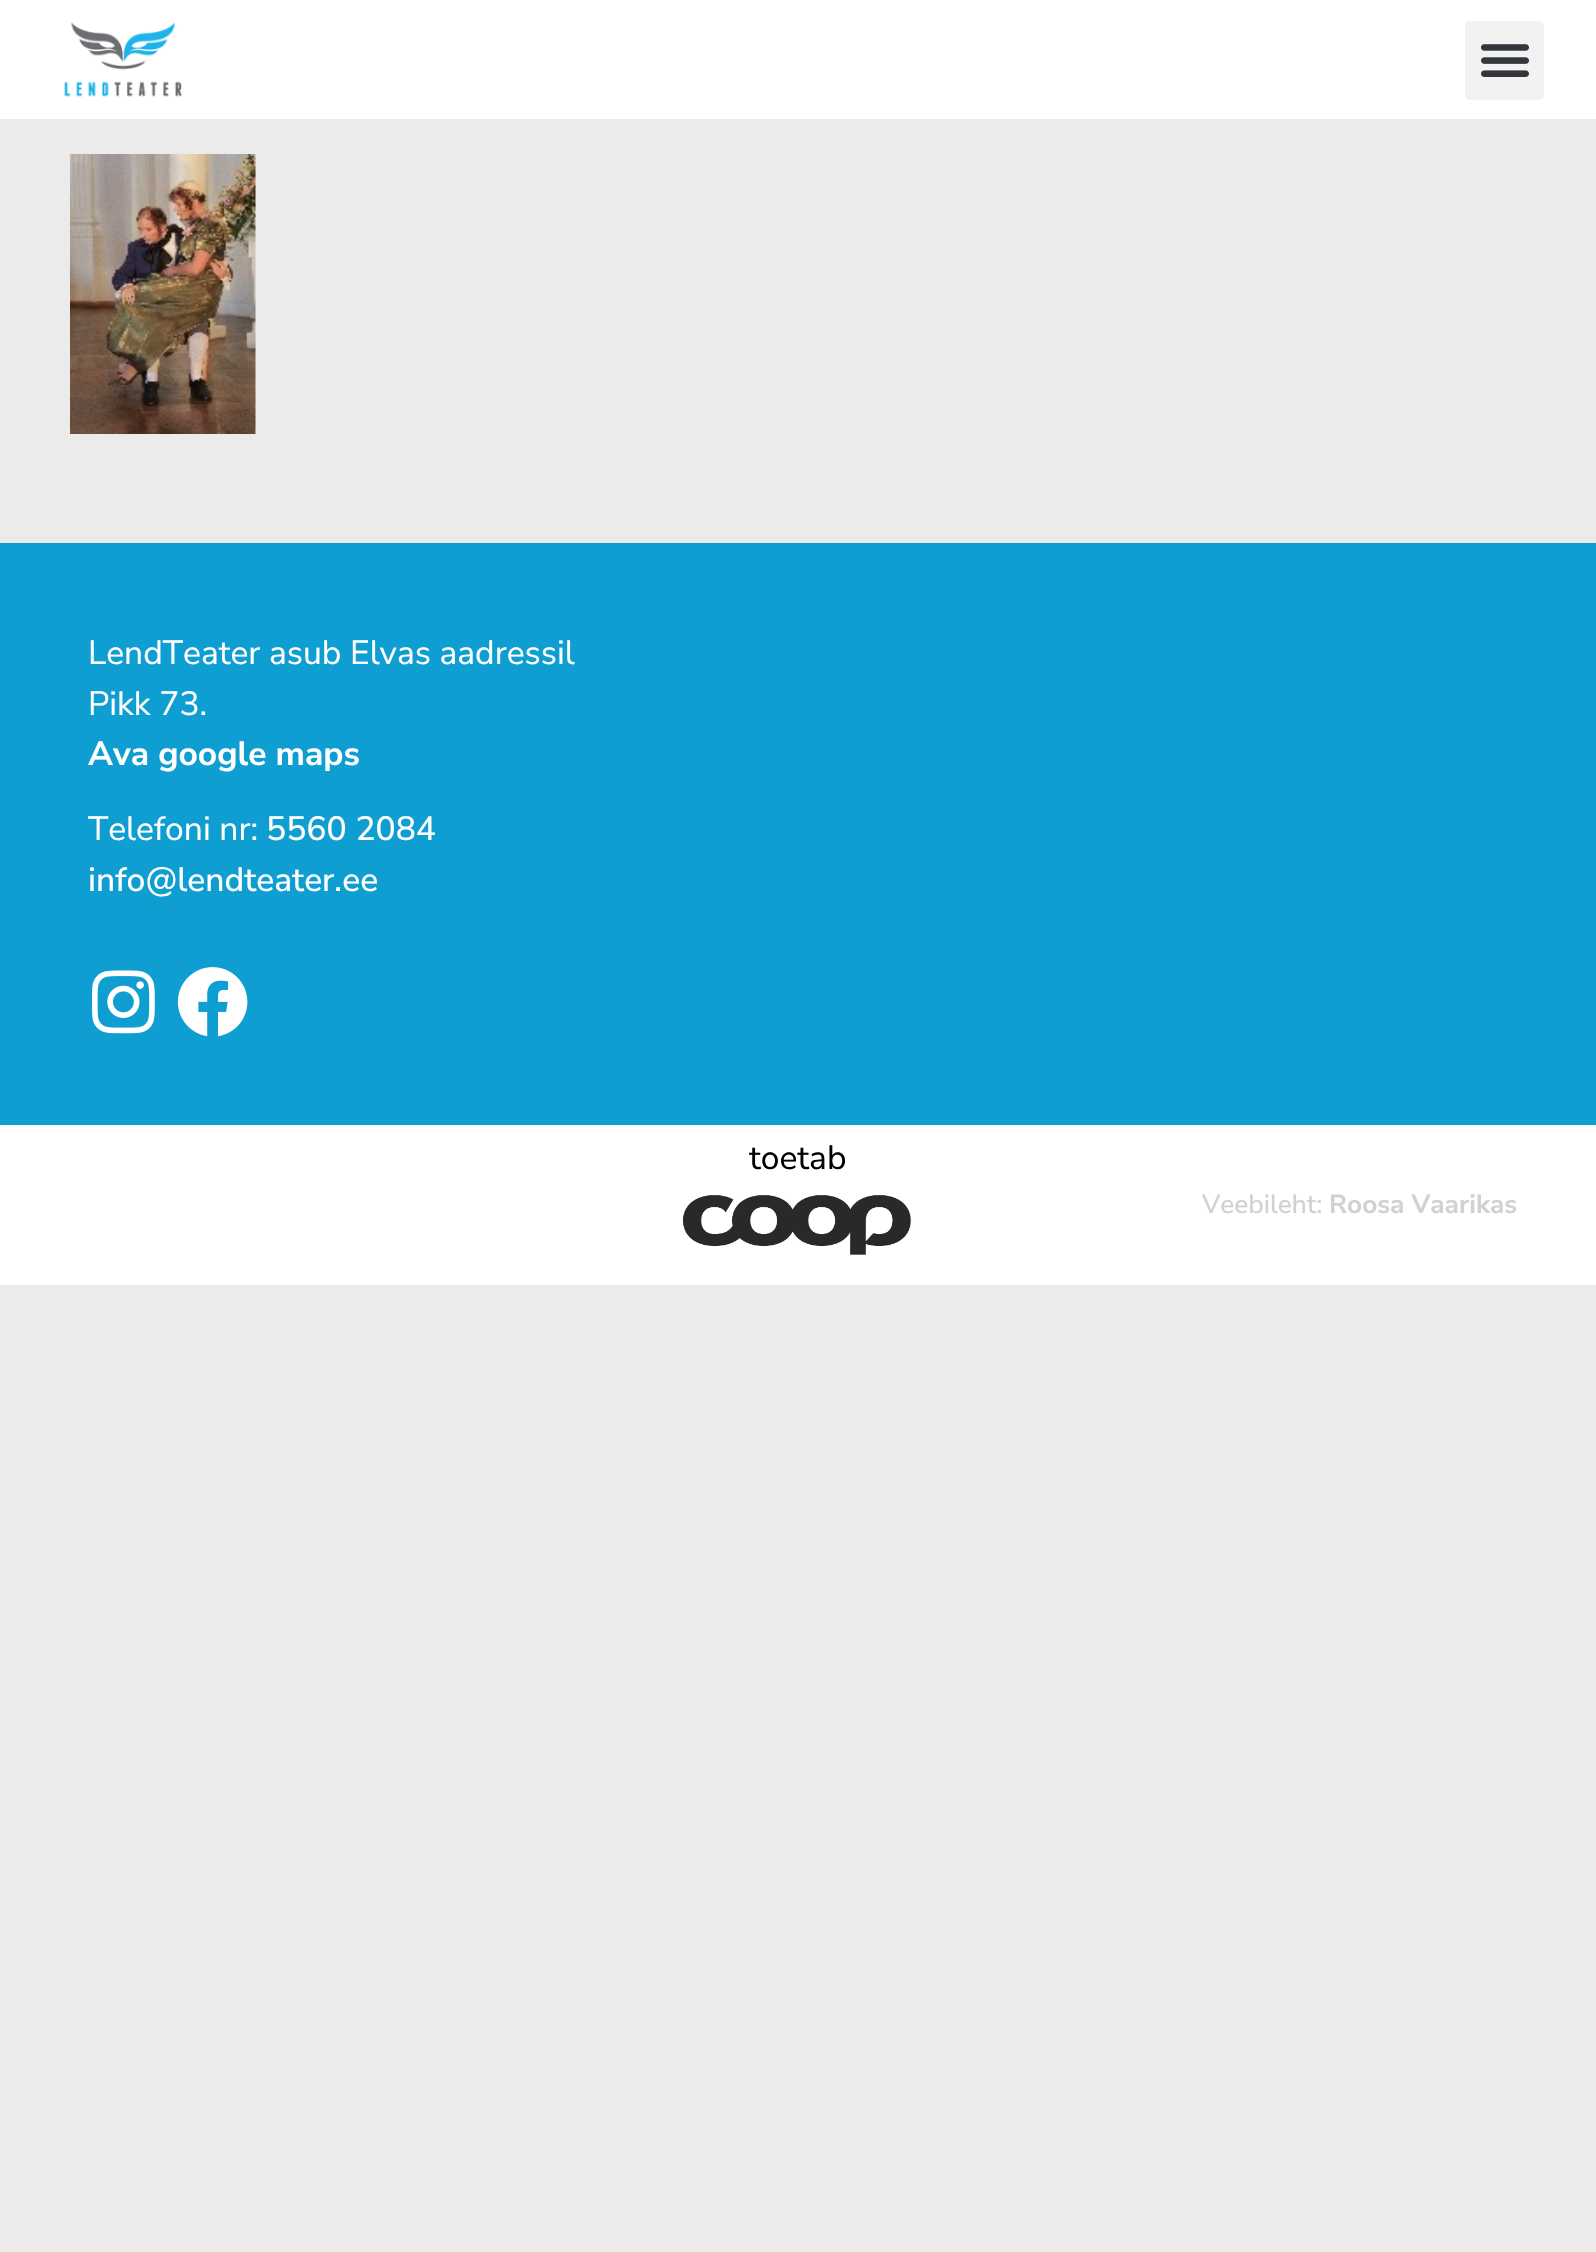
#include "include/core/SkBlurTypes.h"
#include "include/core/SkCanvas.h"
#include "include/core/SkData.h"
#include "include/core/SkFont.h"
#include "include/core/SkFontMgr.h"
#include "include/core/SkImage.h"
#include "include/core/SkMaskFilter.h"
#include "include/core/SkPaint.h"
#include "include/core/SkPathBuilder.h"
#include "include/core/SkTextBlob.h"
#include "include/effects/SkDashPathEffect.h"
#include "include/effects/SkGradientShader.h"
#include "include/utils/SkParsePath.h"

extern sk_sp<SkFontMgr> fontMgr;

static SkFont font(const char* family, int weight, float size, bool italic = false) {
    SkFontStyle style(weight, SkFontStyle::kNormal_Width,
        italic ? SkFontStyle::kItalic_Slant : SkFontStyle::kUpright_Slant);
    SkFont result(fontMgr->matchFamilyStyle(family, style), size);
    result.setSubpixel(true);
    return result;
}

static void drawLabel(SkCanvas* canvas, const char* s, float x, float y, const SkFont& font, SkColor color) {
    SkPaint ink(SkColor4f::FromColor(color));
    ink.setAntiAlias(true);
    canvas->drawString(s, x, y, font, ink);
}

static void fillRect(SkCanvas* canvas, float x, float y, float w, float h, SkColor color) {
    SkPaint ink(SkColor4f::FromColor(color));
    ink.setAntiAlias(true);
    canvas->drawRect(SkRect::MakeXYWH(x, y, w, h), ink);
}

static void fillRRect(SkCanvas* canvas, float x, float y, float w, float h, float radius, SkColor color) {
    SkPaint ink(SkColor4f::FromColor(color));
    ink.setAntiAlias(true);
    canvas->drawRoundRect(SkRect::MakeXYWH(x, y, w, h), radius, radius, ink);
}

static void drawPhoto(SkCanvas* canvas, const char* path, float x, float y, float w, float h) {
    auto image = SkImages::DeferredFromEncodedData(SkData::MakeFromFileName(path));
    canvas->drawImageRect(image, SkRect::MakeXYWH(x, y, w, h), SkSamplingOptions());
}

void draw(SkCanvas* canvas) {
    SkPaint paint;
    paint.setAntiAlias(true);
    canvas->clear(0xFFEBEBEB);
    fillRect(canvas, 0, 0, 1596, 119, 0xFFFFFFFF);
    drawPhoto(canvas, "assets/img1.png", 64, 22, 118, 75);
    fillRRect(canvas, 1465, 21, 79, 79, 5, 0xFFF2F2F2);
    drawPhoto(canvas, "assets/img2.png", 1481, 44, 48, 33);
    drawPhoto(canvas, "assets/img3.png", 70, 154, 186, 280);
    fillRect(canvas, 0, 543, 1596, 582, 0xFF0E9ED2);
    SkFont font1 = font("Nunito Sans", 400, 33.6f);
    drawLabel(canvas, "LendTeater asub Elvas aadressil", 88, 664, font1, 0xFFFFFFFF);
    drawLabel(canvas, "Pikk 73.", 88, 715, font1, 0xFFFFFFFF);
    SkFont font2 = font("Nunito Sans", 700, 33.6f);
    drawLabel(canvas, "Ava google maps", 88, 765, font2, 0xFFFFFFFF);
    drawLabel(canvas, "Telefoni nr:", 88, 840, font1, 0xFFFFFFFF);
    SkFont font3 = font("Nunito Sans", 500, 33.6f);
    drawLabel(canvas, "5560 2084", 266, 840, font3, 0xFFFFFFFF);
    drawLabel(canvas, "info@lendteater.ee", 88, 891, font3, 0xFFFFFFFF);
    drawPhoto(canvas, "assets/img4.png", 91, 970, 64, 64);
    drawPhoto(canvas, "assets/img5.png", 177, 967, 71, 70);
    fillRect(canvas, 0, 1125, 1596, 160, 0xFFFFFFFF);
    drawLabel(canvas, "toetab", 749, 1169, font1, 0xFF000000);
    drawPhoto(canvas, "assets/img6.png", 682, 1195, 229, 60);
    SkFont font4 = font("Nunito Sans", 500, 26.25f);
    drawLabel(canvas, "Veebileht:", 1202, 1213, font4, 0xFFD1D1D1);
    SkFont font5 = font("Nunito Sans", 700, 26.25f);
    drawLabel(canvas, "Roosa Vaarikas", 1329, 1213, font5, 0xFFD1D1D1);
}
